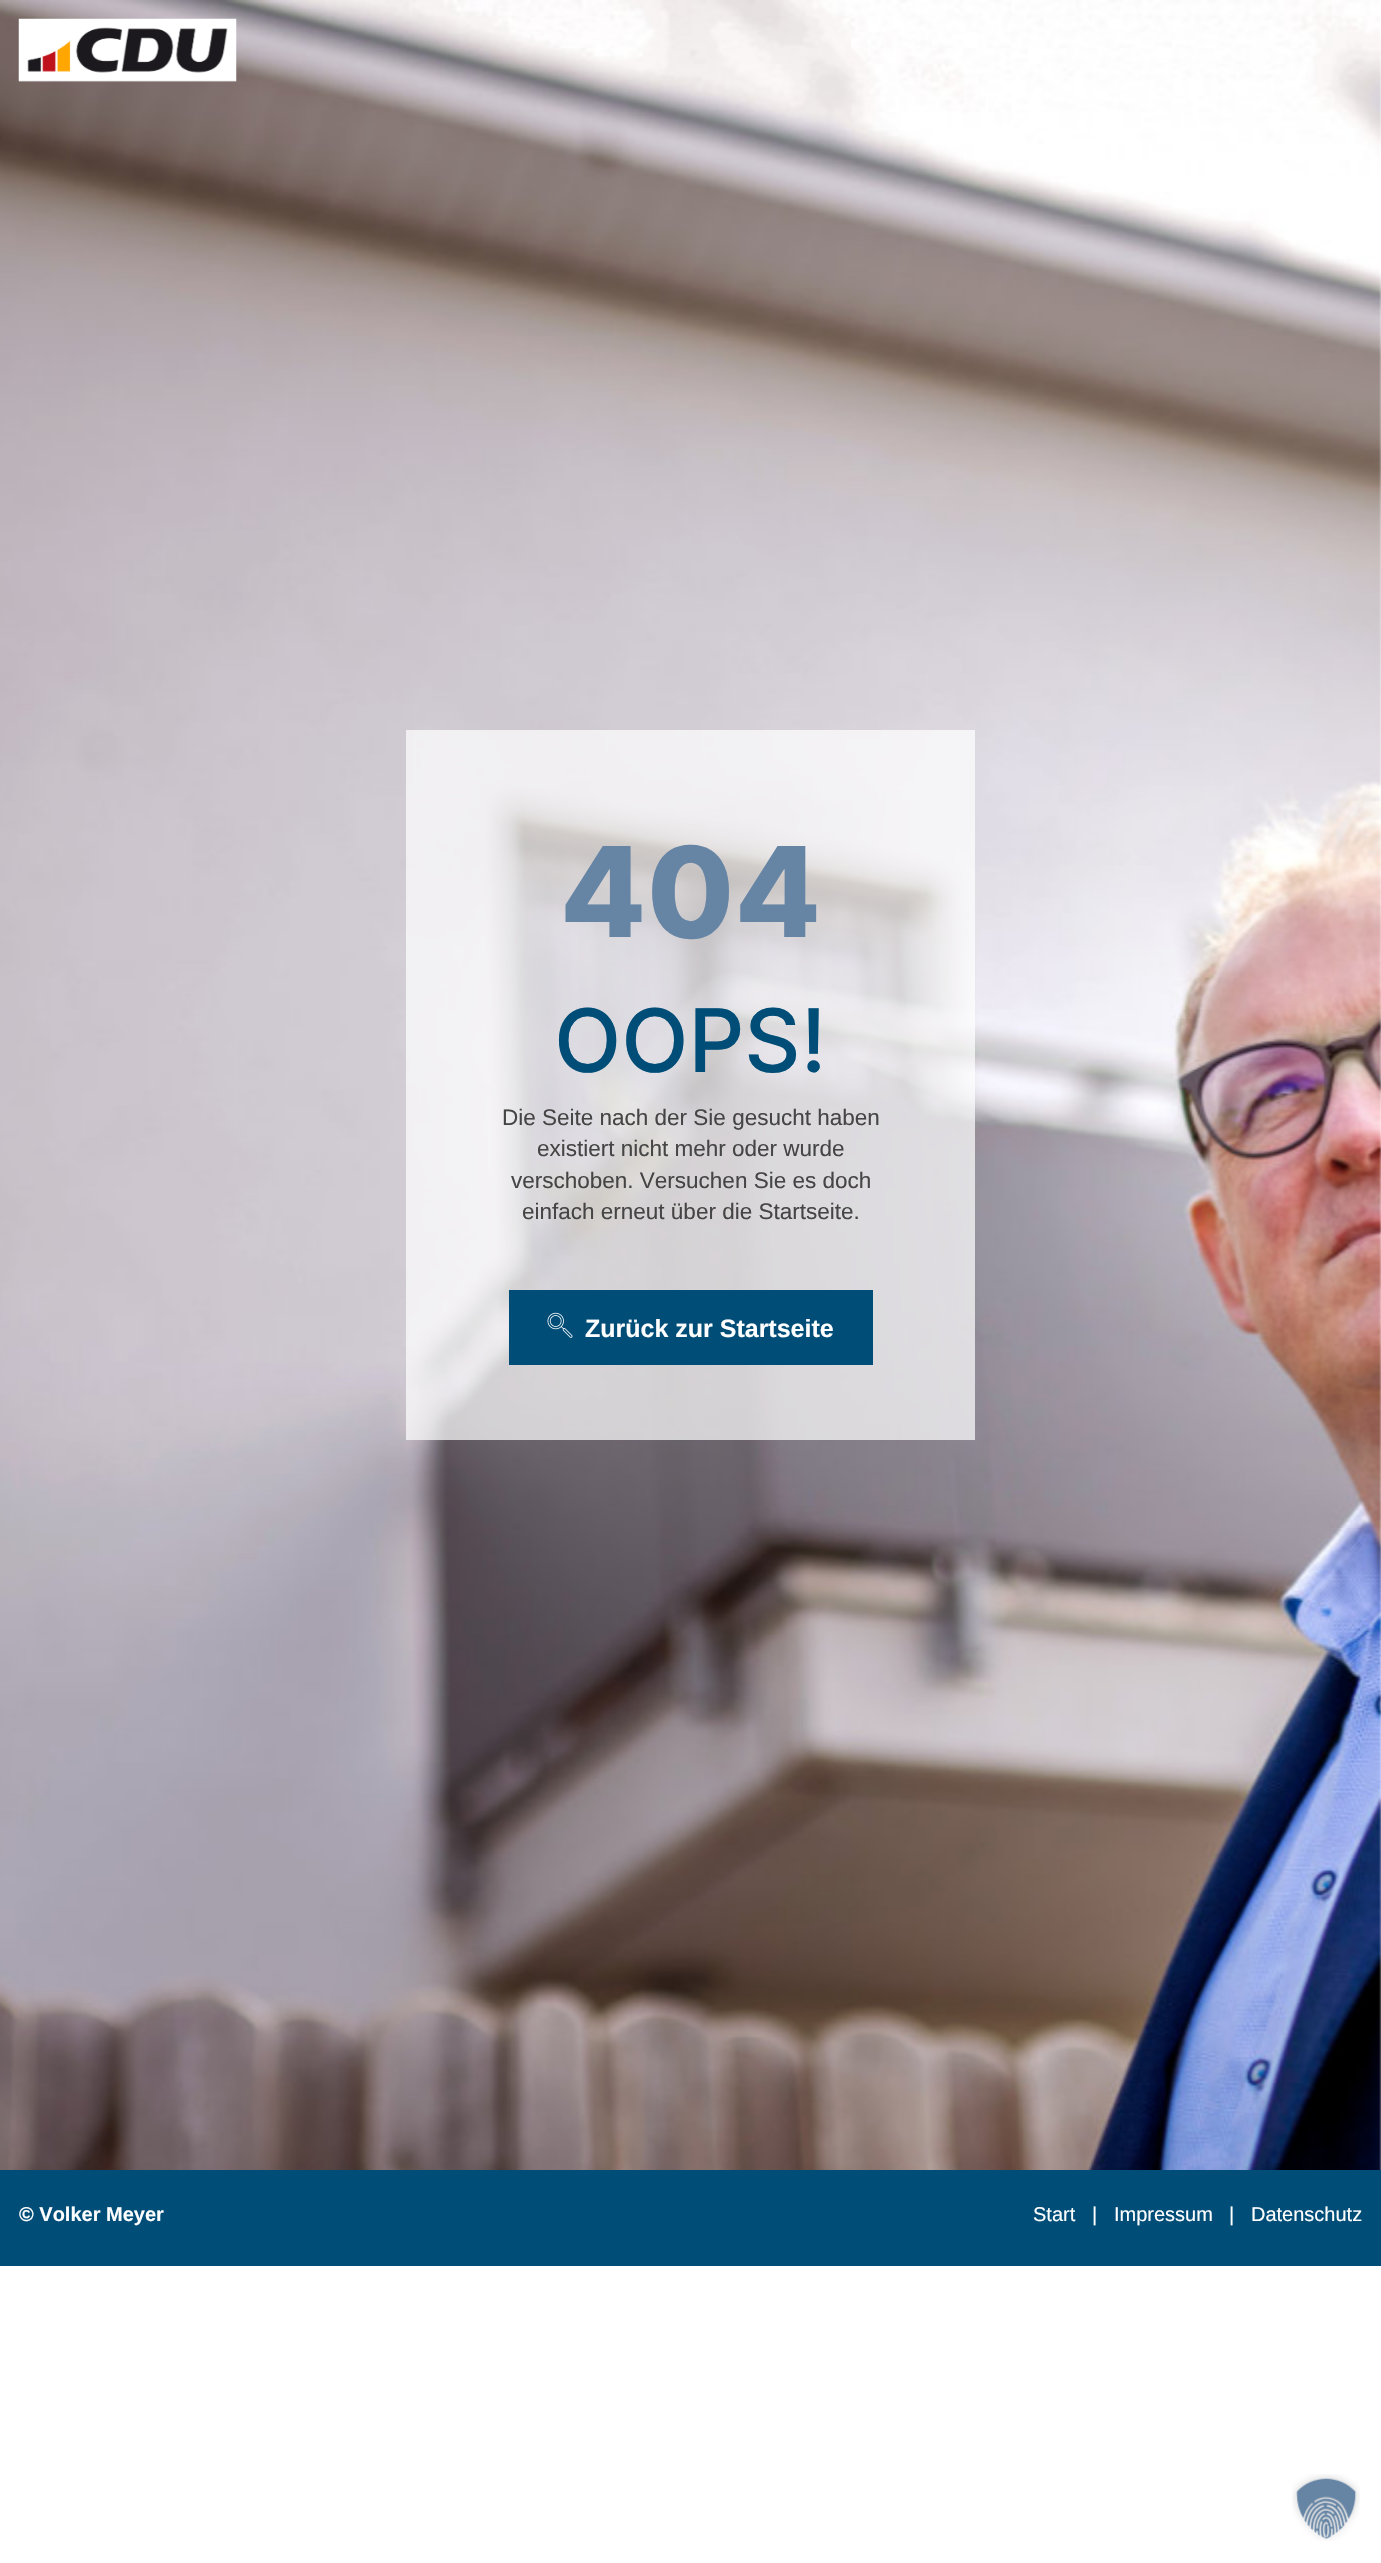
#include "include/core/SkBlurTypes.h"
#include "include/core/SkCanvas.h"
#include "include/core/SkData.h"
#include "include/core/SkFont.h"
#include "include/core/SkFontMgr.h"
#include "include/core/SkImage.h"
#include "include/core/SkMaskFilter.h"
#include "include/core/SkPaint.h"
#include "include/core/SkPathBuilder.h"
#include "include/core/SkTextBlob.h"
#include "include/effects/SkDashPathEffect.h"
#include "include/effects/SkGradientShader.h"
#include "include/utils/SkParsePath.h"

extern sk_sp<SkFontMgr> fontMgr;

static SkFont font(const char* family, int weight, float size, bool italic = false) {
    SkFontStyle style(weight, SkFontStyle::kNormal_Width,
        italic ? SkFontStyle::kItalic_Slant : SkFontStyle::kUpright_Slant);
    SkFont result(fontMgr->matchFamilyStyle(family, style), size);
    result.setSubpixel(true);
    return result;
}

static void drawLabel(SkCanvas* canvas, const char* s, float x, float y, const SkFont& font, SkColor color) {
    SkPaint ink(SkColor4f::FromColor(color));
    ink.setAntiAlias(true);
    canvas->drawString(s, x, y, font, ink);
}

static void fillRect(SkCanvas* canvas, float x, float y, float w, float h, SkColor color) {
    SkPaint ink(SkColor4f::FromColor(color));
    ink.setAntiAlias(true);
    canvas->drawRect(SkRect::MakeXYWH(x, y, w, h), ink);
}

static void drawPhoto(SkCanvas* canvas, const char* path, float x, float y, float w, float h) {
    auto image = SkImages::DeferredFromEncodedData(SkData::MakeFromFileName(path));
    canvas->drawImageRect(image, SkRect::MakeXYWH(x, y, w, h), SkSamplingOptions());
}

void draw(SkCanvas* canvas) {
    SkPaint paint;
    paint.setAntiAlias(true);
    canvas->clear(0xFFFFFFFF);
    drawPhoto(canvas, "assets/img2.png", 0, 0, 1381, 2170);
    drawPhoto(canvas, "assets/img1.png", 18, 18, 219, 64);
    fillRect(canvas, 406, 730, 569, 710, 0xB3FFFFFF);
    SkFont font1 = font("Inter", 800, 125);
    drawLabel(canvas, "404", 560, 937, font1, 0xFF6685A5);
    SkFont font2 = font("Inter", 500, 87.5f);
    drawLabel(canvas, "OOPS!", 554, 1072, font2, 0xFF004D78);
    SkFont font3 = font("Liberation Sans", 400, 22.5f);
    drawLabel(canvas, "Die Seite nach der Sie gesucht haben", 502, 1125, font3, 0xFF454545);
    drawLabel(canvas, "existiert nicht mehr oder wurde", 537, 1156, font3, 0xFF454545);
    drawLabel(canvas, "verschoben. Versuchen Sie es doch", 511, 1188, font3, 0xFF454545);
    drawLabel(canvas, "einfach erneut über die Startseite.", 522, 1219, font3, 0xFF454545);
    fillRect(canvas, 509, 1290, 364, 75, 0xFF004D78);
    drawPhoto(canvas, "assets/img3.png", 547, 1312, 26, 26);
    SkFont font4 = font("Liberation Sans", 700, 25);
    drawLabel(canvas, "Zurück zur Startseite", 585, 1337, font4, 0xFFFFFFFF);
    fillRect(canvas, 0, 2170, 1381, 96, 0xFF004D78);
    SkFont font5 = font("Liberation Sans", 700, 20);
    drawLabel(canvas, "© Volker Meyer", 19, 2221, font5, 0xFFFFFFFF);
    SkFont font6 = font("Liberation Sans", 400, 20);
    drawLabel(canvas, "Start", 1033, 2221, font6, 0xFFFFFFFF);
    drawLabel(canvas, "|", 1092, 2221, font6, 0xFFFFFFFF);
    drawLabel(canvas, "Impressum", 1114, 2221, font6, 0xFFFFFFFF);
    drawLabel(canvas, "|", 1229, 2221, font6, 0xFFFFFFFF);
    drawLabel(canvas, "Datenschutz", 1251, 2221, font6, 0xFFFFFFFF);
    drawPhoto(canvas, "assets/img4.png", 1292, 2474, 68, 67);
}
